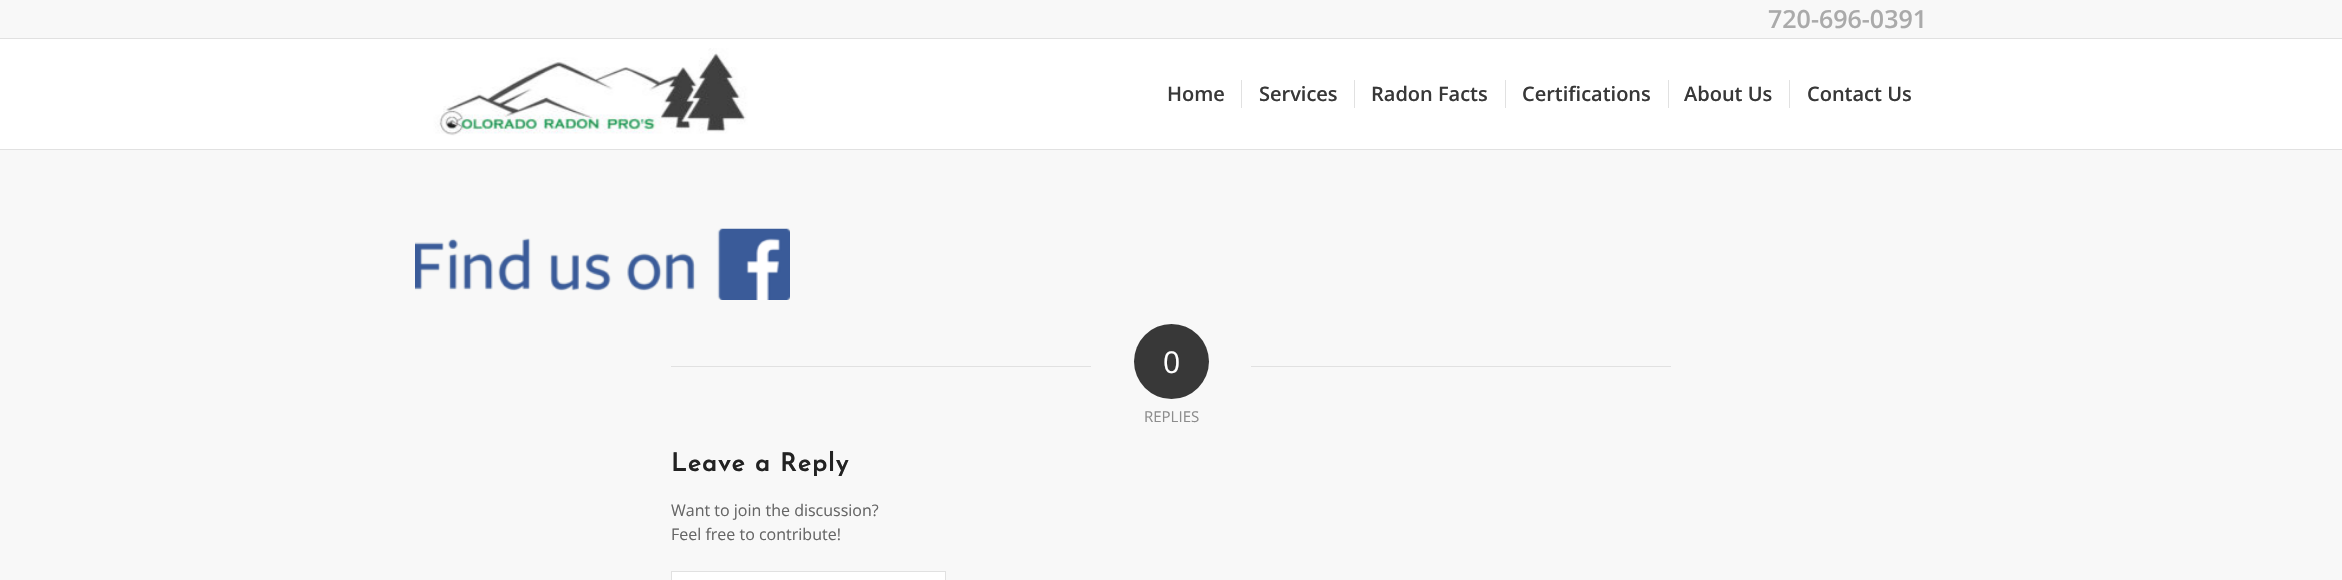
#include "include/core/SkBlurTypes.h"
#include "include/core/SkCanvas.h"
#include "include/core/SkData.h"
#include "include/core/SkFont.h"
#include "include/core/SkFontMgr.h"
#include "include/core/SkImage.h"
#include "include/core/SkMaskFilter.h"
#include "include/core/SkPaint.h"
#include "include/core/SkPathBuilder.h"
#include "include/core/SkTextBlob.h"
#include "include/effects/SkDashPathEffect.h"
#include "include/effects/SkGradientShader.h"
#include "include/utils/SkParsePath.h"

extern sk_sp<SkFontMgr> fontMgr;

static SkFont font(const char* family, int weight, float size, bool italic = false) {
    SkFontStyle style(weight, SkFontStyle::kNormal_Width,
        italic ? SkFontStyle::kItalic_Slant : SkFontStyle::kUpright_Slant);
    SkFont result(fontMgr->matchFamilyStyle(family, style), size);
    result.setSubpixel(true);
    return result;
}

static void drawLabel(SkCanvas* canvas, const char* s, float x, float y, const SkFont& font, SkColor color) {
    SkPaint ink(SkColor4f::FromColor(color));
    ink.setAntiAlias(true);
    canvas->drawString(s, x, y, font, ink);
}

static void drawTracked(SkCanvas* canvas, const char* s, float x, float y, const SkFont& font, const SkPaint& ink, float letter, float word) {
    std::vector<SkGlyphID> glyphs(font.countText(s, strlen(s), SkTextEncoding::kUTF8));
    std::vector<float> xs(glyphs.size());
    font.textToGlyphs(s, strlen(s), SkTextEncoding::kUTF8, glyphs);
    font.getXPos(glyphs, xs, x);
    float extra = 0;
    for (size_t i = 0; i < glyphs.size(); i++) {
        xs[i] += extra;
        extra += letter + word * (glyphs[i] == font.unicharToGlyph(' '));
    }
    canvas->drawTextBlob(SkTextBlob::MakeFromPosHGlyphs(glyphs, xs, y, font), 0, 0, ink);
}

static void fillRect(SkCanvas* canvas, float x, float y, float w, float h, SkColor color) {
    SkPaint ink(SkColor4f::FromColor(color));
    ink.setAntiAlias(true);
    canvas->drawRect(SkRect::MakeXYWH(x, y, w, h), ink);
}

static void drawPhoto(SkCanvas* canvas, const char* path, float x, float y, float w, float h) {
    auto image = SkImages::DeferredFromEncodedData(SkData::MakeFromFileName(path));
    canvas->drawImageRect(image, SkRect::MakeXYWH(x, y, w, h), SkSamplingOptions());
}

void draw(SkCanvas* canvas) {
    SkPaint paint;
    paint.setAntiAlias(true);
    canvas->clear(0xFFFFFFFF);
    fillRect(canvas, 0, 0, 2342, 38, 0xFFF8F8F8);
    fillRect(canvas, 0, 38, 2342, 1, 0xFFE1E1E1);
    SkFont font1 = font("Open Sans", 600, 25);
    drawLabel(canvas, "720-696-0391", 1768, 28, font1, 0xFFAAAAAA);
    fillRect(canvas, 0, 149, 2342, 1, 0xFFE1E1E1);
    drawPhoto(canvas, "assets/img1.png", 415, 39, 355, 97);
    SkFont font2 = font("Open Sans", 600, 20);
    drawLabel(canvas, "Home", 1167, 101, font2, 0xFF383838);
    drawLabel(canvas, "Services", 1259, 101, font2, 0xFF383838);
    fillRect(canvas, 1241, 80, 1, 28, 0xFFE1E1E1);
    drawLabel(canvas, "Radon Facts", 1371, 101, font2, 0xFF383838);
    fillRect(canvas, 1354, 80, 1, 28, 0xFFE1E1E1);
    drawLabel(canvas, "Certifications", 1522, 101, font2, 0xFF383838);
    fillRect(canvas, 1505, 80, 1, 28, 0xFFE1E1E1);
    drawLabel(canvas, "About Us", 1684, 101, font2, 0xFF383838);
    fillRect(canvas, 1668, 80, 1, 28, 0xFFE1E1E1);
    drawLabel(canvas, "Contact Us", 1807, 101, font2, 0xFF383838);
    fillRect(canvas, 1789, 80, 1, 28, 0xFFE1E1E1);
    fillRect(canvas, 0, 150, 2342, 430, 0xFFF8F8F8);
    drawPhoto(canvas, "assets/img2.png", 415, 228, 375, 72);
    fillRect(canvas, 671, 366, 420, 1, 0xFFE1E1E1);
    paint.setColor(0xFF383838);
    canvas->drawCircle(1171.5f, 361.5f, 37.5f, paint);
    SkFont font3 = font("Open Sans", 400, 30);
    drawLabel(canvas, "0", 1163, 373, font3, 0xFFFFFFFF);
    fillRect(canvas, 1251, 366, 420, 1, 0xFFE1E1E1);
    SkFont font4 = font("Open Sans", 400, 15);
    drawLabel(canvas, "REPLIES", 1144, 422, font4, 0xFF8D8D8D);
    SkFont font5 = font("Josefin Sans", 700, 25);
    paint.setColor(0xFF222222);
    drawTracked(canvas, "Leave a Reply", 671, 471, font5, paint, 1.25f, 0);
    SkFont font6 = font("Open Sans", 400, 16);
    drawLabel(canvas, "Want to join the discussion?", 671, 516, font6, 0xFF666666);
    drawLabel(canvas, "Feel free to contribute!", 671, 540, font6, 0xFF666666);
    paint.setColor(0xFFFFFFFF);
    canvas->drawRect(SkRect::MakeXYWH(671.5f, 571.5f, 274, 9), paint);
    paint.setStroke(true);
    paint.setStrokeWidth(1);
    paint.setColor(0xFFE1E1E1);
    canvas->drawRect(SkRect::MakeXYWH(671.5f, 571.5f, 274, 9), paint);
}
